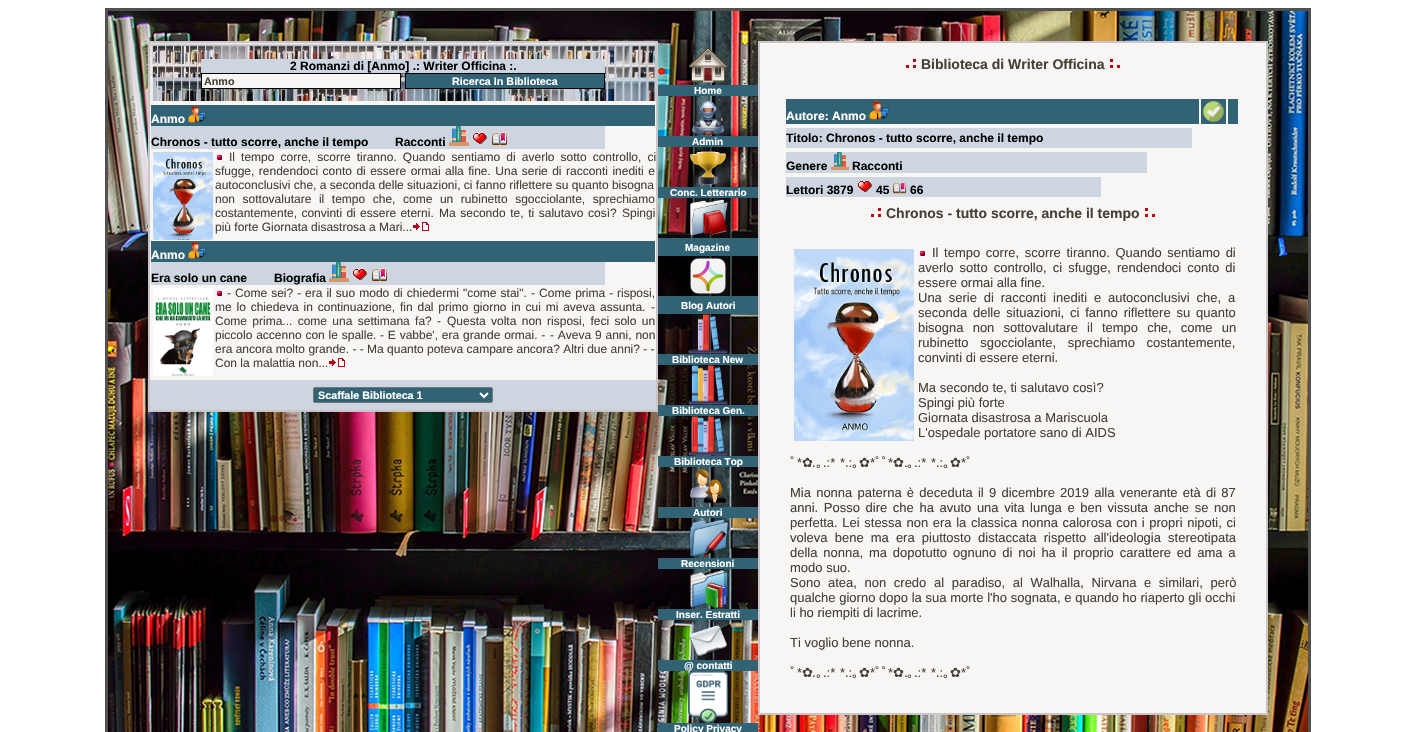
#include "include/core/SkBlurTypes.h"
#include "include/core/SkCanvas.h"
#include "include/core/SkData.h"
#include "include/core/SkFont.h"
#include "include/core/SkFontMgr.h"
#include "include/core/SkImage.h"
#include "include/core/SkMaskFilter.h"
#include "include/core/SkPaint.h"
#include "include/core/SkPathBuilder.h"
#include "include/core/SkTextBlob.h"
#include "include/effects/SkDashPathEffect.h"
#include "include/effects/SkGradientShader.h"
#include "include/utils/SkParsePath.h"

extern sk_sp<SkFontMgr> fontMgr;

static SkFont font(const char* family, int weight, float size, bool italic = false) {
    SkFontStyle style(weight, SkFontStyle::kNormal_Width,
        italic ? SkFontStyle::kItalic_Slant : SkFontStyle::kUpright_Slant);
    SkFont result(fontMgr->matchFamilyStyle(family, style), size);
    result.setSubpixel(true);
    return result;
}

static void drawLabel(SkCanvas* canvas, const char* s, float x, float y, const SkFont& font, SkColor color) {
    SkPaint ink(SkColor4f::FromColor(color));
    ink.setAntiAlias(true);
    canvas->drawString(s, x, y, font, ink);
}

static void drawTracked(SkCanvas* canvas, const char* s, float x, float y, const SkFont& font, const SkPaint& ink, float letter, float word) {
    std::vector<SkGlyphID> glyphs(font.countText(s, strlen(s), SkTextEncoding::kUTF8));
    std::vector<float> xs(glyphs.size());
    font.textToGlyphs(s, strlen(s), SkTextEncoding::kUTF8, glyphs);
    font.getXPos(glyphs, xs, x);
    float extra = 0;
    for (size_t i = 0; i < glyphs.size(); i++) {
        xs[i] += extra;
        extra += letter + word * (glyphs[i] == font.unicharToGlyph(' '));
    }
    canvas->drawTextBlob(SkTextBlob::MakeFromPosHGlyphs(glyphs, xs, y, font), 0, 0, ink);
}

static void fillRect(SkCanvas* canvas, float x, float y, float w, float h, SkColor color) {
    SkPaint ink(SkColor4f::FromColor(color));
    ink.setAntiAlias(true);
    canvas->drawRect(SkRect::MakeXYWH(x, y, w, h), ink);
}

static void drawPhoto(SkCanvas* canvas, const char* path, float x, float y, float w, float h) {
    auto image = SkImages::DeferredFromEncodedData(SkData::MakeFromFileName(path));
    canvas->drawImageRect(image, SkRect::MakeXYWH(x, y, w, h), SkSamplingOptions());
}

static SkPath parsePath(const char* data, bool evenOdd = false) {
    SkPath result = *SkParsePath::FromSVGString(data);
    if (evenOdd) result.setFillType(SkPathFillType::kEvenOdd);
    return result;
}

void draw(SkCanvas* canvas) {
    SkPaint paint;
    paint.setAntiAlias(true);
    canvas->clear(0xFFFFFFFF);
    paint.setStroke(true);
    paint.setStrokeWidth(2);
    paint.setColor(0xFF51514F);
    canvas->drawRect(SkRect::MakeXYWH(106, 9, 1204, 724), paint);
    drawPhoto(canvas, "assets/img1.png", 108, 11, 1200, 721);
    paint.setStrokeWidth(1);
    canvas->drawRect(SkRect::MakeXYWH(107.5f, 10.5f, 1201, 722), paint);
    drawPhoto(canvas, "assets/img2.png", 108, 41, 2, 2);
    drawPhoto(canvas, "assets/img3.png", 110, 41, 2, 2);
    fillRect(canvas, 150, 101, 506, 279, 0xFFF8F5F5);
    paint.setColor(0xFFCBC5C7);
    canvas->drawRect(SkRect::MakeXYWH(148.5f, 41.5f, 509, 370), paint);
    canvas->drawRect(SkRect::MakeXYWH(149.5f, 42.5f, 507, 368), paint);
    drawPhoto(canvas, "assets/img4.png", 150, 43, 506, 58);
    fillRect(canvas, 201, 59, 404, 14, 0xFFCDD5E0);
    SkFont font1 = font("Liberation Sans", 700, 12);
    drawLabel(canvas, "2 Romanzi di [Anmo] .: Writer Officina :.", 290, 70, font1, 0xFF000000);
    paint.setStroke(false);
    paint.setColor(0xFFF8F5F5);
    canvas->drawRect(SkRect::MakeXYWH(201.5f, 73.5f, 199, 15), paint);
    paint.setStroke(true);
    paint.setColor(0xFF000000);
    canvas->drawRect(SkRect::MakeXYWH(201.5f, 73.5f, 199, 15), paint);
    SkFont font2 = font("Liberation Sans", 700, 10.75f);
    drawLabel(canvas, "Anmo", 204, 85, font2, 0xFF434134);
    paint.setStroke(false);
    paint.setColor(0xFF326374);
    canvas->drawRect(SkRect::MakeXYWH(405.5f, 73.5f, 199, 15), paint);
    paint.setStroke(true);
    paint.setColor(0xFF000000);
    canvas->drawRect(SkRect::MakeXYWH(405.5f, 73.5f, 199, 15), paint);
    drawLabel(canvas, "Ricerca In Biblioteca", 452, 85, font2, 0xFFFFFFFF);
    fillRect(canvas, 151, 105, 504, 21, 0xFF326374);
    drawLabel(canvas, "Anmo", 151, 123, font1, 0xFFFFFFFF);
    drawPhoto(canvas, "assets/img5.png", 188, 105, 18, 18);
    fillRect(canvas, 151, 126, 454, 23, 0xFFCDD5E0);
    drawLabel(canvas, "Chronos - tutto scorre, anche il tempo", 151, 146, font1, 0xFF000000);
    drawLabel(canvas, "Racconti", 395, 146, font1, 0xFF000000);
    drawPhoto(canvas, "assets/img6.png", 449, 126, 20, 20);
    drawPhoto(canvas, "assets/img7.png", 473, 133, 14, 11);
    drawPhoto(canvas, "assets/img8.png", 492, 132, 15, 14);
    drawPhoto(canvas, "assets/img9.png", 153, 152, 60, 88);
    drawPhoto(canvas, "assets/img10.png", 217, 155, 5, 5);
    SkFont font3 = font("Liberation Sans", 400, 12);
    paint.setStroke(false);
    paint.setColor(0xFF434134);
    drawTracked(canvas, "Il tempo corre, scorre tiranno. Quando sentiamo di averlo sotto controllo, ci", 229, 161, font3, paint, 0, 2.75f);
    drawTracked(canvas, "sfugge, rendendoci conto di essere ormai alla fine. Una serie di racconti inediti e", 215, 175, font3, paint, 0, 1.1f);
    drawLabel(canvas, "autoconclusivi che, a seconda delle situazioni, ci fanno riflettere su quanto bisogna", 215, 189, font3, 0xFF434134);
    drawTracked(canvas, "non sottovalutare il tempo che, come un rubinetto sgocciolante, sprechiamo", 215, 203, font3, paint, 0, 4.25f);
    drawTracked(canvas, "costantemente, convinti di essere eterni.", 215, 217, font3, paint, 0, 1);
    drawTracked(canvas, "Ma secondo te, ti salutavo così?", 439, 217, font3, paint, 0, 1.25f);
    drawLabel(canvas, "Spingi", 622, 217, font3, 0xFF434134);
    drawLabel(canvas, "più forte Giornata disastrosa a Mari...", 215, 231, font3, 0xFF434134);
    drawPhoto(canvas, "assets/img11.png", 413, 222, 16, 9);
    fillRect(canvas, 151, 241, 504, 21, 0xFF326374);
    drawLabel(canvas, "Anmo", 151, 259, font1, 0xFFFFFFFF);
    drawPhoto(canvas, "assets/img5.png", 188, 241, 18, 18);
    fillRect(canvas, 151, 262, 454, 23, 0xFFCDD5E0);
    drawLabel(canvas, "Era solo un cane", 151, 282, font1, 0xFF000000);
    drawLabel(canvas, "Biografia", 274, 282, font1, 0xFF000000);
    drawPhoto(canvas, "assets/img6.png", 329, 262, 20, 20);
    drawPhoto(canvas, "assets/img7.png", 353, 269, 14, 11);
    drawPhoto(canvas, "assets/img8.png", 372, 268, 15, 14);
    drawPhoto(canvas, "assets/img12.png", 153, 288, 60, 88);
    drawPhoto(canvas, "assets/img10.png", 217, 291, 5, 5);
    drawTracked(canvas, "- Come sei? -", 227, 297, font3, paint, 0, 0.75f);
    drawTracked(canvas, "era il suo modo di chiedermi \"come stai\".", 305, 297, font3, paint, 0, 0.75f);
    drawTracked(canvas, "- Come prima -", 531, 297, font3, paint, 0, 0.75f);
    drawLabel(canvas, "risposi,", 617, 297, font3, 0xFF434134);
    drawTracked(canvas, "me lo chiedeva in continuazione, fin dal primo giorno in cui mi aveva assunta.", 215, 311, font3, paint, 0, 1.5f);
    drawLabel(canvas, "-", 651, 311, font3, 0xFF434134);
    drawTracked(canvas, "Come prima... come una settimana fa? -", 215, 325, font3, paint, 0, 2);
    drawTracked(canvas, "Questa volta non risposi, feci solo un", 447, 325, font3, paint, 0, 2);
    drawTracked(canvas, "piccolo accenno con le spalle.", 215, 339, font3, paint, 0, 0.5f);
    drawTracked(canvas, "- E vabbe', era grande ormai. -", 380, 339, font3, paint, 0, 0.5f);
    drawTracked(canvas, "- Aveva 9 anni, non", 550, 339, font3, paint, 0, 0.5f);
    drawLabel(canvas, "era ancora molto grande. - - Ma quanto poteva campare ancora? Altri due anni? - -", 215, 353, font3, 0xFF434134);
    drawLabel(canvas, "Con la malattia non...", 215, 367, font3, 0xFF434134);
    drawPhoto(canvas, "assets/img11.png", 329, 358, 16, 9);
    fillRect(canvas, 150, 380, 506, 30, 0xFFCDD5E0);
    paint.setColor(0xFF326374);
    canvas->drawRoundRect(SkRect::MakeXYWH(313.5f, 387.5f, 179, 15), 1.5f, 1.5f, paint);
    paint.setStroke(true);
    paint.setColor(0xFF767676);
    canvas->drawRoundRect(SkRect::MakeXYWH(313.5f, 387.5f, 179, 15), 1.5f, 1.5f, paint);
    paint.setStrokeWidth(2);
    paint.setColor(0xFFFFFFFF);
    canvas->drawPath(parsePath("M480 393L484 397L488 393"), paint);
    drawLabel(canvas, "Scaffale Biblioteca 1", 318, 399, font2, 0xFFFFFFFF);
    drawPhoto(canvas, "assets/img13.png", 688, 47, 40, 36);
    fillRect(canvas, 658, 85, 100, 11, 0xFF326374);
    SkFont font4 = font("Liberation Sans", 700, 10);
    drawLabel(canvas, "Home", 694, 94, font4, 0xFFFFFFFF);
    drawPhoto(canvas, "assets/img14.png", 691, 101, 34, 35);
    fillRect(canvas, 658, 136, 100, 11, 0xFF326374);
    drawLabel(canvas, "Admin", 692, 145, font4, 0xFFFFFFFF);
    drawPhoto(canvas, "assets/img15.png", 690, 151, 36, 34);
    fillRect(canvas, 658, 187, 100, 11, 0xFF326374);
    drawLabel(canvas, "Conc. Letterario", 670, 196, font4, 0xFFFFFFFF);
    drawPhoto(canvas, "assets/img16.png", 689, 199, 39, 37);
    fillRect(canvas, 658, 238, 100, 18, 0xFF326374);
    drawLabel(canvas, "Magazine", 685, 251, font4, 0xFFFFFFFF);
    drawPhoto(canvas, "assets/img17.png", 690, 258, 36, 36);
    fillRect(canvas, 658, 296, 100, 18, 0xFF326374);
    drawLabel(canvas, "Blog Autori", 681, 309, font4, 0xFFFFFFFF);
    drawPhoto(canvas, "assets/img18.png", 688, 314, 40, 40);
    fillRect(canvas, 658, 354, 100, 11, 0xFF326374);
    drawLabel(canvas, "Biblioteca New", 672, 363, font4, 0xFFFFFFFF);
    drawPhoto(canvas, "assets/img19.png", 688, 365, 40, 40);
    fillRect(canvas, 658, 405, 100, 11, 0xFF326374);
    drawLabel(canvas, "Biblioteca Gen.", 672, 414, font4, 0xFFFFFFFF);
    drawPhoto(canvas, "assets/img20.png", 688, 416, 40, 40);
    fillRect(canvas, 658, 456, 100, 11, 0xFF326374);
    drawLabel(canvas, "Biblioteca Top", 674, 465, font4, 0xFFFFFFFF);
    drawPhoto(canvas, "assets/img21.png", 690, 469, 37, 35);
    fillRect(canvas, 658, 507, 100, 11, 0xFF326374);
    drawLabel(canvas, "Autori", 693, 516, font4, 0xFFFFFFFF);
    drawPhoto(canvas, "assets/img22.png", 690, 519, 38, 39);
    fillRect(canvas, 658, 558, 100, 11, 0xFF326374);
    drawLabel(canvas, "Recensioni", 681, 567, font4, 0xFFFFFFFF);
    drawPhoto(canvas, "assets/img23.png", 690, 569, 38, 40);
    fillRect(canvas, 658, 609, 100, 11, 0xFF326374);
    drawLabel(canvas, "Inser. Estratti", 676, 618, font4, 0xFFFFFFFF);
    drawPhoto(canvas, "assets/img24.png", 689, 625, 38, 32);
    fillRect(canvas, 658, 660, 100, 11, 0xFF326374);
    drawLabel(canvas, "@ contatti", 684, 669, font4, 0xFFFFFFFF);
    drawPhoto(canvas, "assets/img25.png", 688, 671, 40, 52);
    fillRect(canvas, 658, 723, 100, 9, 0xFF326374);
    drawLabel(canvas, "Policy Privacy", 674, 732, font4, 0xFFFFFFFF);
    fillRect(canvas, 760, 43, 506, 670, 0xFFF8F5F5);
    paint.setStrokeWidth(1);
    paint.setColor(0xFFCBC5C7);
    canvas->drawRect(SkRect::MakeXYWH(758.5f, 41.5f, 509, 673), paint);
    canvas->drawRect(SkRect::MakeXYWH(759.5f, 42.5f, 507, 671), paint);
    drawPhoto(canvas, "assets/img26.png", 905, 59, 11, 9);
    SkFont font5 = font("Liberation Sans", 700, 14);
    drawLabel(canvas, "Biblioteca di Writer Officina", 921, 69, font5, 0xFF434134);
    drawPhoto(canvas, "assets/img27.png", 1110, 59, 11, 9);
    fillRect(canvas, 786, 99, 413, 25, 0xFF326374);
    drawLabel(canvas, "Autore: Anmo", 786, 120, font1, 0xFFFFFFFF);
    drawPhoto(canvas, "assets/img28.png", 869, 100, 20, 20);
    fillRect(canvas, 1201, 99, 25, 25, 0xFF326374);
    drawPhoto(canvas, "assets/img29.png", 1203, 101, 21, 21);
    fillRect(canvas, 1228, 99, 10, 25, 0xFF326374);
    fillRect(canvas, 786, 128, 406, 20, 0xFFCDD5E0);
    drawLabel(canvas, "Titolo: Chronos - tutto scorre, anche il tempo", 786, 142, font1, 0xFF000000);
    fillRect(canvas, 786, 152, 361, 21, 0xFFCDD5E0);
    drawLabel(canvas, "Genere", 786, 170, font1, 0xFF000000);
    drawPhoto(canvas, "assets/img30.png", 831, 152, 18, 18);
    drawLabel(canvas, "Racconti", 852, 170, font1, 0xFF000000);
    fillRect(canvas, 786, 177, 315, 20, 0xFFCDD5E0);
    drawLabel(canvas, "Lettori 3879", 786, 194, font1, 0xFF000000);
    drawPhoto(canvas, "assets/img7.png", 858, 181, 14, 11);
    drawLabel(canvas, "45", 876, 194, font1, 0xFF000000);
    drawPhoto(canvas, "assets/img31.png", 893, 182, 14, 12);
    drawLabel(canvas, "66", 910, 194, font1, 0xFF000000);
    drawPhoto(canvas, "assets/img26.png", 870, 208, 11, 9);
    drawLabel(canvas, "Chronos - tutto scorre, anche il tempo", 886, 218, font5, 0xFF434134);
    drawPhoto(canvas, "assets/img27.png", 1145, 208, 11, 9);
    drawPhoto(canvas, "assets/img32.png", 794, 249, 120, 192);
    drawPhoto(canvas, "assets/img10.png", 920, 251, 5, 5);
    SkFont font6 = font("Liberation Sans", 400, 13);
    paint.setStroke(false);
    paint.setColor(0xFF434134);
    drawTracked(canvas, "Il tempo corre, scorre tiranno. Quando sentiamo di", 932, 257, font6, paint, 0, 2);
    drawTracked(canvas, "averlo sotto controllo, ci sfugge, rendendoci conto di", 918, 272, font6, paint, 0, 2.5f);
    drawLabel(canvas, "essere ormai alla fine.", 918, 287, font6, 0xFF434134);
    drawTracked(canvas, "Una serie di racconti inediti e autoconclusivi che, a", 918, 302, font6, paint, 0, 3.25f);
    drawTracked(canvas, "seconda delle situazioni, ci fanno riflettere su quanto", 918, 317, font6, paint, 0, 2.25f);
    drawTracked(canvas, "bisogna non sottovalutare il tempo che, come un", 918, 332, font6, paint, 0, 5.5f);
    drawTracked(canvas, "rubinetto sgocciolante, sprechiamo costantemente,", 918, 347, font6, paint, 0, 8);
    drawLabel(canvas, "convinti di essere eterni.", 918, 362, font6, 0xFF434134);
    drawLabel(canvas, "Ma secondo te, ti salutavo così?", 918, 392, font6, 0xFF434134);
    drawLabel(canvas, "Spingi più forte", 918, 407, font6, 0xFF434134);
    drawLabel(canvas, "Giornata disastrosa a Mariscuola", 918, 422, font6, 0xFF434134);
    drawLabel(canvas, "L'ospedale portatore sano di AIDS", 918, 437, font6, 0xFF434134);
    SkFont font7 = font("IPAGothic", 400, 13);
    drawLabel(canvas, "ﾟ", 790, 467, font7, 0xFF434134);
    drawLabel(canvas, "*", 797, 467, font6, 0xFF434134);
    SkFont font8 = font("DejaVu Sans", 400, 13);
    drawLabel(canvas, "✿", 802, 467, font8, 0xFF434134);
    drawTracked(canvas, ".:* *.:", 823, 467, font6, paint, 0, 1);
    drawLabel(canvas, "✿", 859, 467, font8, 0xFF434134);
    drawLabel(canvas, "*", 870, 467, font6, 0xFF434134);
    drawLabel(canvas, "ﾟﾟ", 875, 467, font7, 0xFF434134);
    drawLabel(canvas, "*", 888, 467, font6, 0xFF434134);
    drawLabel(canvas, "✿", 893, 467, font8, 0xFF434134);
    drawTracked(canvas, ".:* *.:", 914, 467, font6, paint, 0, 1);
    drawLabel(canvas, "✿", 950, 467, font8, 0xFF434134);
    drawLabel(canvas, "*", 961, 467, font6, 0xFF434134);
    drawLabel(canvas, "ﾟ", 966, 467, font7, 0xFF434134);
    drawLabel(canvas, ".", 812, 467, font6, 0xFF434134);
    drawLabel(canvas, "｡", 816, 467, font7, 0xFF434134);
    drawLabel(canvas, "｡", 852, 467, font7, 0xFF434134);
    drawLabel(canvas, ".", 904, 467, font6, 0xFF434134);
    drawLabel(canvas, "｡", 907, 467, font7, 0xFF434134);
    drawLabel(canvas, "｡", 943, 467, font7, 0xFF434134);
    drawTracked(canvas, "Mia nonna paterna è deceduta il 9 dicembre 2019 alla venerante età di 87", 790, 497, font6, paint, 0, 1.6f);
    drawTracked(canvas, "anni. Posso dire che ha avuto una vita lunga e ben vissuta anche se non", 790, 512, font6, paint, 0, 2);
    drawTracked(canvas, "perfetta. Lei stessa non era la classica nonna calorosa con i propri nipoti, ci", 790, 527, font6, paint, 0, 1);
    drawTracked(canvas, "voleva bene ma era piuttosto distaccata rispetto all'ideologia stereotipata", 790, 542, font6, paint, 0, 3.5f);
    drawTracked(canvas, "della nonna, ma dopotutto ognuno di noi ha il proprio carattere ed ama a", 790, 557, font6, paint, 0, 2.25f);
    drawLabel(canvas, "modo suo.", 790, 572, font6, 0xFF434134);
    drawTracked(canvas, "Sono atea, non credo al paradiso, al Walhalla, Nirvana e similari, però", 790, 587, font6, paint, 0, 4);
    drawTracked(canvas, "qualche giorno dopo la sua morte l'ho sognata, e quando ho riaperto gli occhi", 790, 602, font6, paint, 0, 0.1f);
    drawLabel(canvas, "li ho riempiti di lacrime.", 790, 617, font6, 0xFF434134);
    drawLabel(canvas, "Ti voglio bene nonna.", 790, 647, font6, 0xFF434134);
    drawLabel(canvas, "ﾟ", 790, 677, font7, 0xFF434134);
    drawLabel(canvas, "*", 797, 677, font6, 0xFF434134);
    drawLabel(canvas, "✿", 802, 677, font8, 0xFF434134);
    drawTracked(canvas, ".:* *.:", 823, 677, font6, paint, 0, 1);
    drawLabel(canvas, "✿", 859, 677, font8, 0xFF434134);
    drawLabel(canvas, "*", 870, 677, font6, 0xFF434134);
    drawLabel(canvas, "ﾟﾟ", 875, 677, font7, 0xFF434134);
    drawLabel(canvas, "*", 888, 677, font6, 0xFF434134);
    drawLabel(canvas, "✿", 893, 677, font8, 0xFF434134);
    drawTracked(canvas, ".:* *.:", 914, 677, font6, paint, 0, 1);
    drawLabel(canvas, "✿", 950, 677, font8, 0xFF434134);
    drawLabel(canvas, "*", 961, 677, font6, 0xFF434134);
    drawLabel(canvas, "ﾟ", 966, 677, font7, 0xFF434134);
    drawLabel(canvas, ".", 812, 677, font6, 0xFF434134);
    drawLabel(canvas, "｡", 816, 677, font7, 0xFF434134);
    drawLabel(canvas, "｡", 852, 677, font7, 0xFF434134);
    drawLabel(canvas, ".", 904, 677, font6, 0xFF434134);
    drawLabel(canvas, "｡", 907, 677, font7, 0xFF434134);
    drawLabel(canvas, "｡", 943, 677, font7, 0xFF434134);
}
